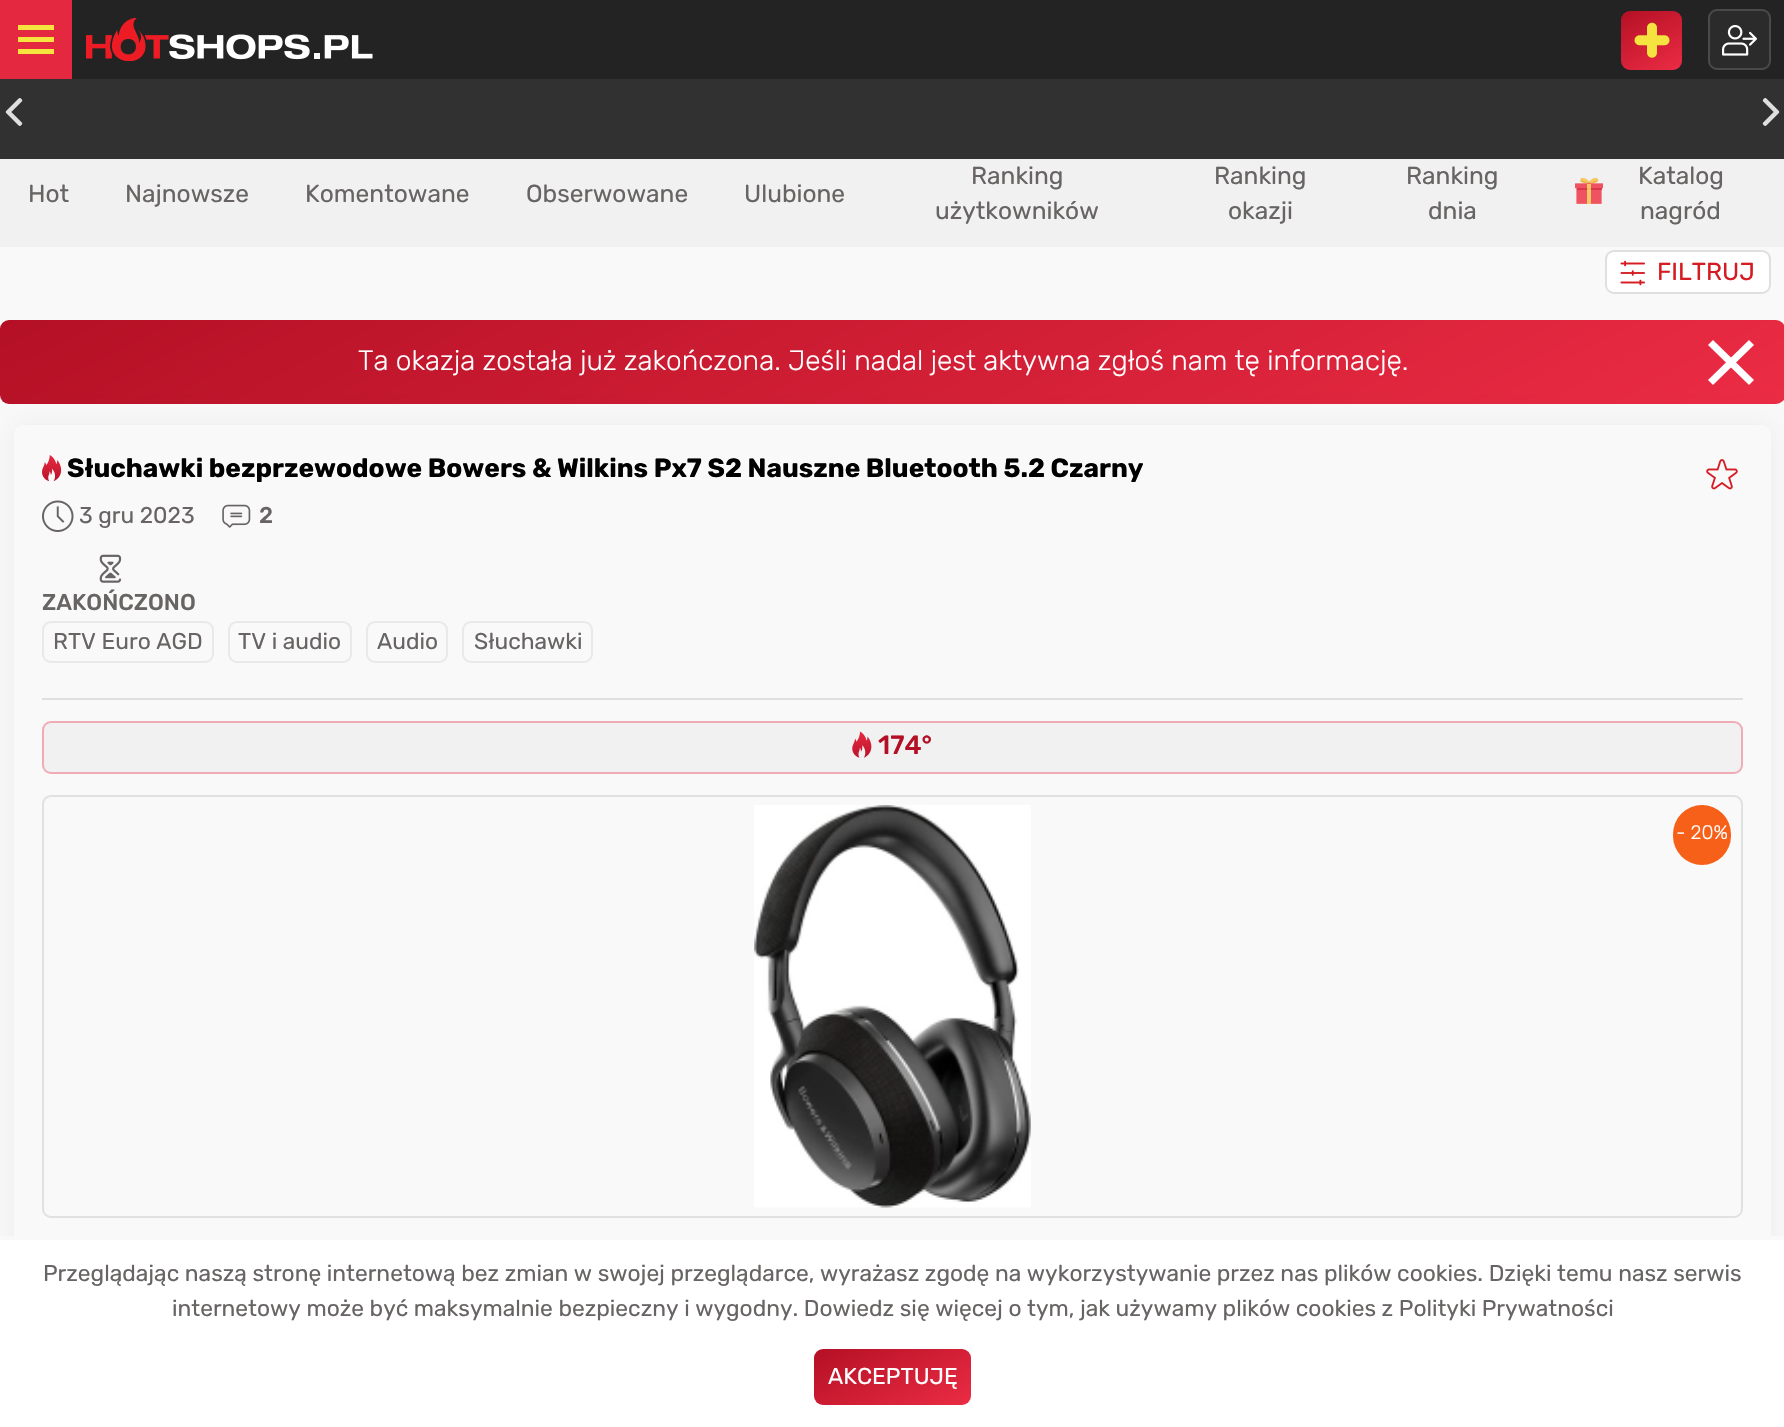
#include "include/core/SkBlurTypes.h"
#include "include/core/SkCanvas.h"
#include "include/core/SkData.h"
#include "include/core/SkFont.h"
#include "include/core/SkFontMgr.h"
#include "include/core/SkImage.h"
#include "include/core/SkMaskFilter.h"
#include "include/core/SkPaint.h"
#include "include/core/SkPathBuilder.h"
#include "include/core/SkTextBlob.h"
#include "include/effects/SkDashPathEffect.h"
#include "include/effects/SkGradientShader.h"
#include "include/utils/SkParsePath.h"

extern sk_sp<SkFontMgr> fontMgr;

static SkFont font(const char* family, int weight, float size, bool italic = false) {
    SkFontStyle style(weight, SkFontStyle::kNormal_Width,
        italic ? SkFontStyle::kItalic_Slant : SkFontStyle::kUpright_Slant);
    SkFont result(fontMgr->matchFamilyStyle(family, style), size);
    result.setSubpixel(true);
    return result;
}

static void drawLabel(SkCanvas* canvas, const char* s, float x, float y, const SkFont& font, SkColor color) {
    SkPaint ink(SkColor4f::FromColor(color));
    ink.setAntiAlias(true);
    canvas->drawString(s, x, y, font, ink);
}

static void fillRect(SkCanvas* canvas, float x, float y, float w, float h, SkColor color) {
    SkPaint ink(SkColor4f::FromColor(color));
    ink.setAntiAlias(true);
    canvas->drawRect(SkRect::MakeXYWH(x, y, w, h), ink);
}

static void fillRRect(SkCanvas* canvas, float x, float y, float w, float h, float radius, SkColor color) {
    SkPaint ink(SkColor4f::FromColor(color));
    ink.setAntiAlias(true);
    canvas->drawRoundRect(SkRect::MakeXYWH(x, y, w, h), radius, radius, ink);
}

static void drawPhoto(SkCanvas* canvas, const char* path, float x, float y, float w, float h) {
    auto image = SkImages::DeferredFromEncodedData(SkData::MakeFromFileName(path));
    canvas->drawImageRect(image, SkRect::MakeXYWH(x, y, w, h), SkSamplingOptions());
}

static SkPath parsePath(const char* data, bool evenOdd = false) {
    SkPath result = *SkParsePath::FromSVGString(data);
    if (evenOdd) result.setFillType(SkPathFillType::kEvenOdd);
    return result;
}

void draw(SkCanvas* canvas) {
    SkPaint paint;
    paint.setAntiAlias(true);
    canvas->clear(0xFFF9F9F9);
    fillRect(canvas, 72, 0, 1712, 79, 0xFF232323);
    fillRect(canvas, 0, 0, 72, 79, 0xFFE42840);
    fillRect(canvas, 18, 25, 36, 5, 0xFFF5E33F);
    fillRect(canvas, 18, 37, 36, 5, 0xFFF5E33F);
    fillRect(canvas, 18, 49, 36, 5, 0xFFF5E33F);
    drawPhoto(canvas, "assets/img1.png", 86, 18, 287, 43);
    {
        const SkColor colors[] = {0xFFEB2C44, 0xFFB41025};
        const float stops[] = {0, 1};
        const SkPoint ends[] = {{1670, 76}, {1632, 4.4f}};
        paint.setShader(SkGradientShader::MakeLinear(ends, colors, stops, 2, SkTileMode::kClamp));
        paint.setAlpha(255);
    }
    canvas->drawRoundRect(SkRect::MakeXYWH(1621, 11, 61, 59), 9, 9, paint);
    drawPhoto(canvas, "assets/img2.png", 1634, 22, 36, 36);
    paint.setShader(nullptr);
    paint.setColor(0xFF2B2B2B);
    canvas->drawRoundRect(SkRect::MakeXYWH(1709, 10, 61, 59), 8, 8, paint);
    paint.setStroke(true);
    paint.setStrokeWidth(2);
    paint.setColor(0xFF4A4A4A);
    canvas->drawRoundRect(SkRect::MakeXYWH(1709, 10, 61, 59), 8, 8, paint);
    drawPhoto(canvas, "assets/img3.png", 1722, 25, 35, 31);
    fillRect(canvas, 0, 79, 1784, 80, 0xFF313131);
    drawPhoto(canvas, "assets/img4.png", 5, 98, 18, 28);
    drawPhoto(canvas, "assets/img5.png", 1762, 98, 18, 28);
    fillRect(canvas, 0, 159, 1784, 88, 0xFFF1F1F1);
    SkFont font1 = font("Rubik", 400, 24.5f);
    drawLabel(canvas, "Hot", 28, 202, font1, 0xFF686464);
    drawLabel(canvas, "Najnowsze", 125, 202, font1, 0xFF686464);
    drawLabel(canvas, "Komentowane", 305, 202, font1, 0xFF686464);
    drawLabel(canvas, "Obserwowane", 526, 202, font1, 0xFF686464);
    drawLabel(canvas, "Ulubione", 744, 202, font1, 0xFF686464);
    drawLabel(canvas, "Ranking", 971, 184, font1, 0xFF686464);
    drawLabel(canvas, "użytkowników", 935, 219, font1, 0xFF686464);
    drawLabel(canvas, "Ranking", 1214, 184, font1, 0xFF686464);
    drawLabel(canvas, "okazji", 1228, 219, font1, 0xFF686464);
    drawLabel(canvas, "Ranking", 1406, 184, font1, 0xFF686464);
    drawLabel(canvas, "dnia", 1428, 219, font1, 0xFF686464);
    drawPhoto(canvas, "assets/img6.png", 1575, 177, 28, 27);
    drawLabel(canvas, "Katalog", 1638, 184, font1, 0xFF686464);
    drawLabel(canvas, "nagród", 1640, 219, font1, 0xFF686464);
    paint.setStroke(false);
    paint.setColor(0xFFFFFFFF);
    canvas->drawRoundRect(SkRect::MakeXYWH(1606, 251, 164, 42), 8, 8, paint);
    paint.setStroke(true);
    paint.setColor(0xFFDFDFDF);
    canvas->drawRoundRect(SkRect::MakeXYWH(1606, 251, 164, 42), 8, 8, paint);
    drawPhoto(canvas, "assets/img7.png", 1620, 260, 25, 26);
    drawLabel(canvas, "FILTRUJ", 1657, 280, font1, 0xFFD51C22);
    paint.setStroke(false);
    {
        const SkColor colors[] = {0xFFEB2C44, 0xFFB41025};
        const float stops[] = {0, 1};
        const SkPoint ends[] = {{1107, 765}, {678, -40}};
        paint.setShader(SkGradientShader::MakeLinear(ends, colors, stops, 2, SkTileMode::kClamp));
        paint.setAlpha(255);
    }
    canvas->drawRoundRect(SkRect::MakeXYWH(0, 320, 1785, 84), 9, 9, paint);
    SkFont font2 = font("Rubik", 300, 28);
    drawLabel(canvas, "Ta okazja została już zakończona. Jeśli nadal jest aktywna zgłoś nam tę informację.", 358, 370, font2, 0xFFFFFFFF);
    paint.setShader(nullptr);
    paint.setColor(0xFFFFFFFF);
    canvas->drawPath(parsePath("M1749 340L1754 345L1713 385L1708 380Z"), paint);
    canvas->drawPath(parsePath("M1708 345L1713 340L1754 380L1749 385Z"), paint);
    paint.setColor(0x0D000000);
    paint.setMaskFilter(SkMaskFilter::MakeBlur(kNormal_SkBlurStyle, 13));
    canvas->drawRoundRect(SkRect::MakeXYWH(14, 425, 1757, 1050), 9, 9, paint);
    paint.setMaskFilter(nullptr);
    fillRRect(canvas, 14, 425, 1757, 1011, 9, 0xFFF9F9F9);
    drawPhoto(canvas, "assets/img8.png", 42, 455, 20, 27);
    SkFont font3 = font("Rubik", 700, 26.25f);
    drawLabel(canvas, "Słuchawki bezprzewodowe Bowers & Wilkins Px7 S2 Nauszne Bluetooth 5.2 Czarny", 67, 477, font3, 0xFF000000);
    drawPhoto(canvas, "assets/img9.png", 1706, 459, 32, 31);
    drawPhoto(canvas, "assets/img10.png", 42, 500, 32, 32);
    SkFont font4 = font("Rubik", 400, 22.75f);
    drawLabel(canvas, "3 gru 2023", 79, 523, font4, 0xFF686464);
    drawPhoto(canvas, "assets/img11.png", 222, 504, 29, 24);
    SkFont font5 = font("Rubik", 500, 22.75f);
    drawLabel(canvas, "2", 259, 523, font5, 0xFF686464);
    fillRect(canvas, 42, 698, 1701, 2, 0xFFDFDFDF);
    drawPhoto(canvas, "assets/img12.png", 99, 554, 23, 29);
    drawLabel(canvas, "ZAKOŃCZONO", 42, 610, font5, 0xFF686464);
    paint.setStroke(true);
    paint.setColor(0xFFE9E9E9);
    canvas->drawRoundRect(SkRect::MakeXYWH(43, 622, 170, 40), 8, 8, paint);
    drawLabel(canvas, "RTV Euro AGD", 53, 649, font4, 0xFF686464);
    canvas->drawRoundRect(SkRect::MakeXYWH(229, 622, 122, 40), 8, 8, paint);
    drawLabel(canvas, "TV i audio", 238, 649, font4, 0xFF686464);
    canvas->drawRoundRect(SkRect::MakeXYWH(367, 622, 80, 40), 8, 8, paint);
    drawLabel(canvas, "Audio", 377, 649, font4, 0xFF686464);
    canvas->drawRoundRect(SkRect::MakeXYWH(463, 622, 129, 40), 8, 8, paint);
    drawLabel(canvas, "Słuchawki", 474, 649, font4, 0xFF686464);
    fillRRect(canvas, 42, 721, 1701, 53, 9, 0xFFF1F1F1);
    paint.setColor(0x59EB2C44);
    canvas->drawRoundRect(SkRect::MakeXYWH(43, 722, 1699, 51), 8, 8, paint);
    drawPhoto(canvas, "assets/img13.png", 852, 731, 20, 27);
    SkFont font6 = font("Rubik", 500, 26.25f);
    drawLabel(canvas, "174°", 878, 754, font6, 0xFFB41025);
    paint.setColor(0xFFE1E1E1);
    canvas->drawRoundRect(SkRect::MakeXYWH(43, 796, 1699, 421), 8, 8, paint);
    drawPhoto(canvas, "assets/img14.png", 754, 805, 277, 403);
    fillRRect(canvas, 1673, 805, 58, 60, 29, 0xFFF66018);
    SkFont font7 = font("Rubik", 300, 19.5f);
    drawLabel(canvas, "- 20%", 1676, 839, font7, 0xFFFFFFFF);
    fillRect(canvas, 0, 1240, 1784, 187, 0xFFFFFFFF);
    fillRect(canvas, 0, 1236, 1784, 4, 0xFFF9F9F9);
    drawLabel(canvas, "Przeglądając naszą stronę internetową bez zmian w swojej przeglądarce, wyrażasz zgodę na wykorzystywanie przez nas plików cookies. Dzięki temu nasz serwis", 43, 1281, font4, 0xFF686464);
    drawLabel(canvas, "internetowy może być maksymalnie bezpieczny i wygodny. Dowiedz się więcej o tym, jak używamy plików cookies z Polityki Prywatności", 172, 1316, font4, 0xFF686464);
    paint.setStroke(false);
    {
        const SkColor colors[] = {0xFFEB2C44, 0xFFB41025};
        const float stops[] = {0, 1};
        const SkPoint ends[] = {{921, 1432}, {864, 1323}};
        paint.setShader(SkGradientShader::MakeLinear(ends, colors, stops, 2, SkTileMode::kClamp));
        paint.setAlpha(255);
    }
    canvas->drawRoundRect(SkRect::MakeXYWH(814, 1349, 157, 56), 9, 9, paint);
    drawLabel(canvas, "AKCEPTUJĘ", 828, 1384, font4, 0xFFFFFFFF);
}
